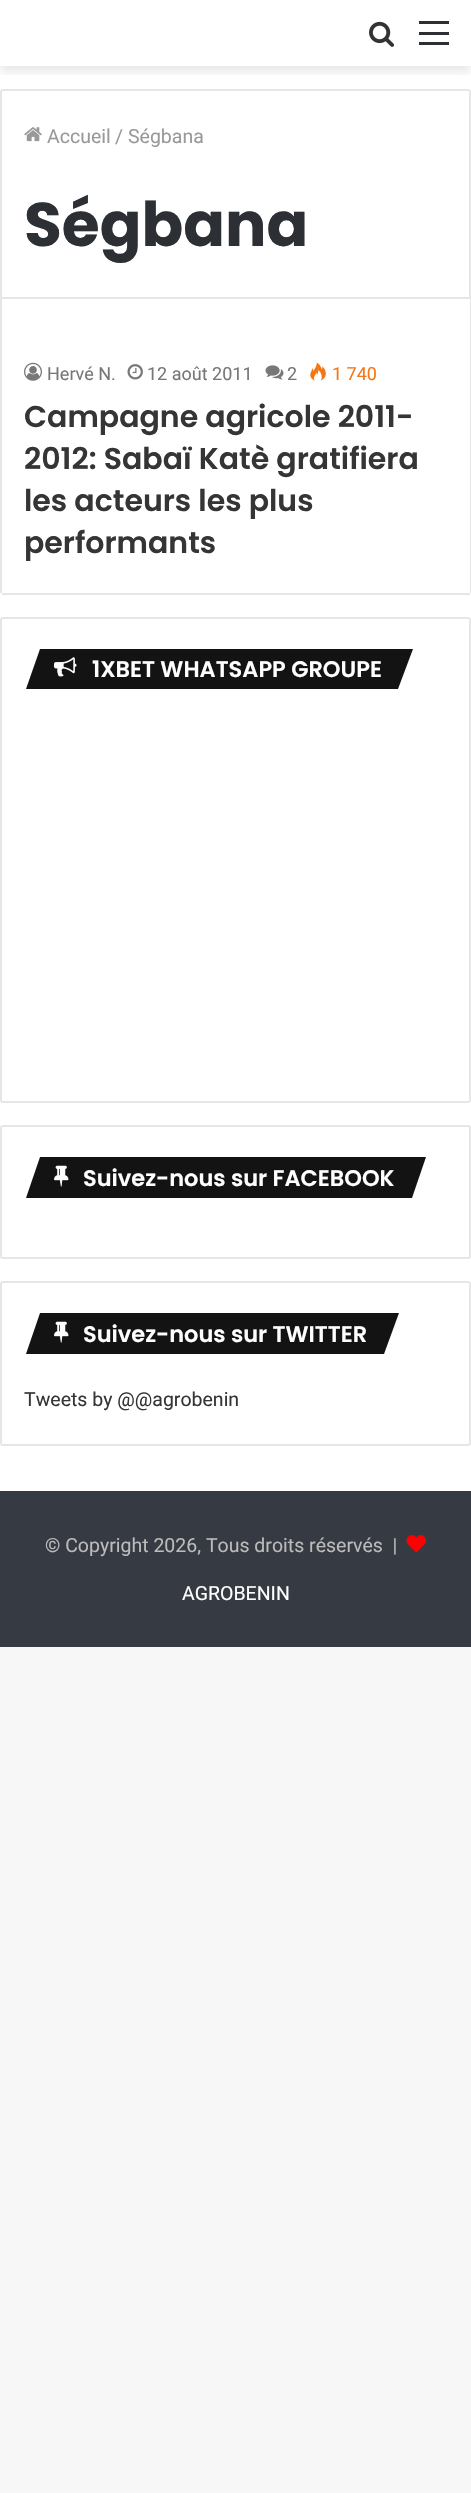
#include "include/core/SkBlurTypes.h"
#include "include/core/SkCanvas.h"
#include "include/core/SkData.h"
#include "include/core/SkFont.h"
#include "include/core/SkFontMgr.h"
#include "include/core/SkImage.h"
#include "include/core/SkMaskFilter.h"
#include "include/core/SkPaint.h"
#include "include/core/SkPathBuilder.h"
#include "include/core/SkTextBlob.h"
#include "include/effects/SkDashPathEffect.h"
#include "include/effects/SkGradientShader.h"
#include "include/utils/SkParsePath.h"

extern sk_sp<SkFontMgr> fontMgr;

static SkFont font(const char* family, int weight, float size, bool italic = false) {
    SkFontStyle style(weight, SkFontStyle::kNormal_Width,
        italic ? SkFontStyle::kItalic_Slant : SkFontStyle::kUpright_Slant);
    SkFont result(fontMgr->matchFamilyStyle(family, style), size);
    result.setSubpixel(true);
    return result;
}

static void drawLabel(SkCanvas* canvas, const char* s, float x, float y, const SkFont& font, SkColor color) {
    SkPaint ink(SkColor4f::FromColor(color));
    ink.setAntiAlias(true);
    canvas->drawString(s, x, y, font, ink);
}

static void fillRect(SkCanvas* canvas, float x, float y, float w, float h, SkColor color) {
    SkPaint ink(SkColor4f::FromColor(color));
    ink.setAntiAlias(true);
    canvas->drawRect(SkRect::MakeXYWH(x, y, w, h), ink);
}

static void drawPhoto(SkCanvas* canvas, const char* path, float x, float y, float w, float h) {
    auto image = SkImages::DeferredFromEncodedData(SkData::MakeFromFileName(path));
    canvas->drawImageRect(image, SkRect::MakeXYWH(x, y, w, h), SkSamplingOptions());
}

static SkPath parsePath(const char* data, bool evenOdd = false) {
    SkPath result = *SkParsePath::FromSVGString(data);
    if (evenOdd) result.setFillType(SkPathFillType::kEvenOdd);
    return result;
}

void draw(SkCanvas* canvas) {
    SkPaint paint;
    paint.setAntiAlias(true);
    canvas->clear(0xFFF7F7F7);
    fillRect(canvas, 0, 0, 471, 1491, 0xFFFFFFFF);
    canvas->save();
    canvas->clipRect(SkRect::MakeXYWH(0, 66, 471, 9));
    paint.setColor(0x1A000000);
    paint.setMaskFilter(SkMaskFilter::MakeBlur(kNormal_SkBlurStyle, 5));
    canvas->drawRect(SkRect::MakeXYWH(0, 5, 471, 66), paint);
    paint.setMaskFilter(nullptr);
    canvas->restore();
    drawPhoto(canvas, "assets/img1.png", 369, 21, 25, 26);
    fillRect(canvas, 419, 32, 30, 3, 0xFF2C2F34);
    fillRect(canvas, 419, 21, 30, 3, 0xFF2C2F34);
    fillRect(canvas, 419, 42, 30, 3, 0xFF2C2F34);
    paint.setStroke(true);
    paint.setStrokeWidth(2);
    paint.setColor(0xFFE6E6E6);
    canvas->drawPath(parsePath("M3 90H468C469 90 470 91 470 92V298H1V92C1 91 2 90 3 90Z"), paint);
    drawPhoto(canvas, "assets/img2.png", 24, 127, 18, 15);
    SkFont font1 = font("Roboto", 400, 19.5f);
    drawLabel(canvas, "Accueil", 47, 143, font1, 0xFF999999);
    drawLabel(canvas, "/", 115, 143, font1, 0xFF999999);
    drawLabel(canvas, "Ségbana", 128, 143, font1, 0xFF999999);
    SkFont font2 = font("Poppins", 700, 61.5f);
    drawLabel(canvas, "Ségbana", 24, 246, font2, 0xFF2C2F34);
    fillRect(canvas, 470, 299, 1, 294, 0xFFE6E6E6);
    fillRect(canvas, 2, 593, 468, 2, 0xFFE6E6E6);
    fillRect(canvas, 0, 299, 2, 294, 0xFFE6E6E6);
    drawPhoto(canvas, "assets/img3.png", 24, 362, 18, 19);
    SkFont font3 = font("Roboto", 400, 18);
    drawLabel(canvas, "Hervé N.", 47, 380, font3, 0xFF777777);
    drawPhoto(canvas, "assets/img4.png", 127, 364, 16, 16);
    drawLabel(canvas, "12 août 2011", 147, 380, font3, 0xFF777777);
    drawPhoto(canvas, "assets/img5.png", 265, 365, 19, 15);
    drawLabel(canvas, "2", 287, 380, font3, 0xFF777777);
    drawPhoto(canvas, "assets/img6.png", 310, 362, 16, 19);
    drawLabel(canvas, "1 740", 332, 380, font3, 0xFFF47614);
    SkFont font4 = font("Poppins", 600, 30);
    drawLabel(canvas, "Campagne agricole 2011-", 24, 427, font4, 0xFF353535);
    drawLabel(canvas, "2012: Sabaï Katè gratifiera", 24, 469, font4, 0xFF353535);
    drawLabel(canvas, "les acteurs les plus", 24, 511, font4, 0xFF353535);
    drawLabel(canvas, "performants", 24, 553, font4, 0xFF353535);
    canvas->drawRoundRect(SkRect::MakeXYWH(1, 618, 469, 484), 2, 2, paint);
    paint.setStroke(false);
    paint.setColor(0xFF131313);
    canvas->drawPath(parsePath("M40 649H413L398 689H26Z"), paint);
    drawPhoto(canvas, "assets/img7.png", 54, 657, 23, 20);
    SkFont font5 = font("Poppins", 600, 22.5f);
    drawLabel(canvas, "1XBET WHATSAPP GROUPE", 92, 677, font5, 0xFFFFFFFF);
    paint.setStroke(true);
    paint.setColor(0xFFE6E6E6);
    canvas->drawRoundRect(SkRect::MakeXYWH(1, 1126, 469, 132), 2, 2, paint);
    paint.setStroke(false);
    paint.setColor(0xFF131313);
    canvas->drawPath(parsePath("M40 1157H426L412 1198H26Z"), paint);
    drawPhoto(canvas, "assets/img8.png", 54, 1165, 15, 22);
    drawLabel(canvas, "Suivez-nous sur FACEBOOK", 83, 1186, font5, 0xFFFFFFFF);
    paint.setStroke(true);
    paint.setColor(0xFFE6E6E6);
    canvas->drawRoundRect(SkRect::MakeXYWH(1, 1282, 469, 163), 2, 2, paint);
    paint.setStroke(false);
    paint.setColor(0xFF131313);
    canvas->drawPath(parsePath("M40 1313H399L384 1354H26Z"), paint);
    drawPhoto(canvas, "assets/img8.png", 54, 1321, 15, 22);
    drawLabel(canvas, "Suivez-nous sur TWITTER", 83, 1342, font5, 0xFFFFFFFF);
    drawLabel(canvas, "Tweets by @@agrobenin", 24, 1406, font1, 0xFF353535);
    fillRect(canvas, 0, 1491, 471, 156, 0xFF363A42);
    drawLabel(canvas, "© Copyright 2026, Tous droits réservés  |", 45, 1552, font1, 0xFFBBBBBB);
    drawPhoto(canvas, "assets/img9.png", 406, 1535, 20, 18);
    drawLabel(canvas, "AGROBENIN", 182, 1600, font1, 0xFFFFFFFF);
}
